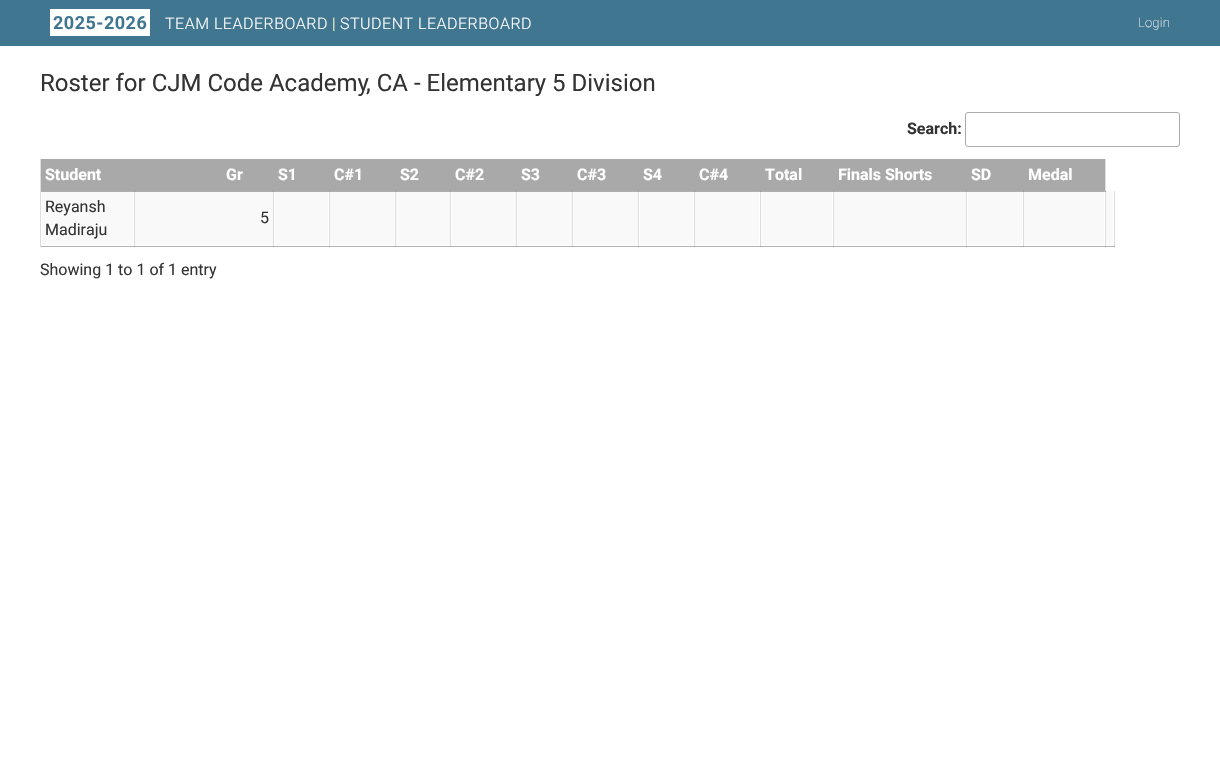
#include "include/core/SkBlurTypes.h"
#include "include/core/SkCanvas.h"
#include "include/core/SkData.h"
#include "include/core/SkFont.h"
#include "include/core/SkFontMgr.h"
#include "include/core/SkImage.h"
#include "include/core/SkMaskFilter.h"
#include "include/core/SkPaint.h"
#include "include/core/SkPathBuilder.h"
#include "include/core/SkTextBlob.h"
#include "include/effects/SkDashPathEffect.h"
#include "include/effects/SkGradientShader.h"
#include "include/utils/SkParsePath.h"

extern sk_sp<SkFontMgr> fontMgr;

static SkFont font(const char* family, int weight, float size, bool italic = false) {
    SkFontStyle style(weight, SkFontStyle::kNormal_Width,
        italic ? SkFontStyle::kItalic_Slant : SkFontStyle::kUpright_Slant);
    SkFont result(fontMgr->matchFamilyStyle(family, style), size);
    result.setSubpixel(true);
    return result;
}

static void drawLabel(SkCanvas* canvas, const char* s, float x, float y, const SkFont& font, SkColor color) {
    SkPaint ink(SkColor4f::FromColor(color));
    ink.setAntiAlias(true);
    canvas->drawString(s, x, y, font, ink);
}

static void drawTracked(SkCanvas* canvas, const char* s, float x, float y, const SkFont& font, const SkPaint& ink, float letter, float word) {
    std::vector<SkGlyphID> glyphs(font.countText(s, strlen(s), SkTextEncoding::kUTF8));
    std::vector<float> xs(glyphs.size());
    font.textToGlyphs(s, strlen(s), SkTextEncoding::kUTF8, glyphs);
    font.getXPos(glyphs, xs, x);
    float extra = 0;
    for (size_t i = 0; i < glyphs.size(); i++) {
        xs[i] += extra;
        extra += letter + word * (glyphs[i] == font.unicharToGlyph(' '));
    }
    canvas->drawTextBlob(SkTextBlob::MakeFromPosHGlyphs(glyphs, xs, y, font), 0, 0, ink);
}

static void fillRect(SkCanvas* canvas, float x, float y, float w, float h, SkColor color) {
    SkPaint ink(SkColor4f::FromColor(color));
    ink.setAntiAlias(true);
    canvas->drawRect(SkRect::MakeXYWH(x, y, w, h), ink);
}

void draw(SkCanvas* canvas) {
    SkPaint paint;
    paint.setAntiAlias(true);
    canvas->clear(0xFFFFFFFF);
    fillRect(canvas, 40, 191, 95, 1, 0xFFB3B3B3);
    fillRect(canvas, 273, 191, 57, 1, 0xFFB3B3B3);
    fillRect(canvas, 394, 191, 2, 1, 0xFFB3B3B3);
    fillRect(canvas, 450, 191, 2, 1, 0xFFB3B3B3);
    fillRect(canvas, 516, 191, 2, 1, 0xFFB3B3B3);
    fillRect(canvas, 572, 191, 2, 1, 0xFFB3B3B3);
    fillRect(canvas, 638, 191, 57, 1, 0xFFB3B3B3);
    fillRect(canvas, 759, 191, 2, 1, 0xFFB3B3B3);
    fillRect(canvas, 832, 191, 2, 1, 0xFFB3B3B3);
    fillRect(canvas, 966, 191, 58, 1, 0xFFB3B3B3);
    fillRect(canvas, 1104, 191, 2, 1, 0xFFB3B3B3);
    fillRect(canvas, 40, 246, 1075, 1, 0xFFB3B3B3);
    fillRect(canvas, 0, 0, 1220, 46, 0xFF417690);
    fillRect(canvas, 50, 9, 100, 27, 0xFFFFFFFF);
    SkFont font1 = font("Roboto", 700, 18);
    paint.setColor(0xFF417690);
    drawTracked(canvas, "2025-2026", 53, 29, font1, paint, 0.5f, 0);
    SkFont font2 = font("Roboto", 300, 16);
    paint.setColor(0xFFFFFFFF);
    drawTracked(canvas, "TEAM LEADERBOARD", 165, 29, font2, paint, 0.5f, 0);
    paint.setColor(0xFFFFFFCC);
    drawTracked(canvas, "|", 332, 29, font2, paint, 0.5f, 0);
    paint.setColor(0xFFFFFFFF);
    drawTracked(canvas, "STUDENT LEADERBOARD", 340, 29, font2, paint, 0.5f, 0);
    SkFont font3 = font("Roboto", 100, 13);
    drawTracked(canvas, "Login", 1138, 27, font3, paint, 0.25f, 0);
    SkFont font4 = font("Roboto", 400, 24);
    drawLabel(canvas, "Roster for CJM Code Academy", 40, 91, font4, 0xFF333333);
    drawLabel(canvas, ", CA - Elementary 5 Division", 366, 91, font4, 0xFF333333);
    SkFont font5 = font("Roboto", 700, 16);
    drawLabel(canvas, "Search:", 907, 134, font5, 0xFF333333);
    paint.setStroke(true);
    paint.setStrokeWidth(1);
    paint.setColor(0xFFAAAAAA);
    canvas->drawRoundRect(SkRect::MakeXYWH(965.5f, 112.5f, 214, 34), 2.5f, 2.5f, paint);
    fillRect(canvas, 41, 159, 1064, 32, 0xFFA9A9A9);
    drawLabel(canvas, "Student", 45, 180, font5, 0xFFFFFFFF);
    fillRect(canvas, 134, 191, 1, 56, 0xFFDDDDDD);
    fillRect(canvas, 134, 191, 1, 1, 0xFF9B9B9B);
    drawLabel(canvas, "Gr", 226, 180, font5, 0xFFFFFFFF);
    fillRect(canvas, 273, 191, 1, 56, 0xFFDDDDDD);
    fillRect(canvas, 273, 191, 1, 1, 0xFF9B9B9B);
    drawLabel(canvas, "S1", 278, 180, font5, 0xFFFFFFFF);
    fillRect(canvas, 329, 191, 1, 56, 0xFFDDDDDD);
    fillRect(canvas, 329, 191, 1, 1, 0xFF9B9B9B);
    drawLabel(canvas, "C#1", 334, 180, font5, 0xFFFFFFFF);
    fillRect(canvas, 395, 191, 1, 56, 0xFFDDDDDD);
    fillRect(canvas, 395, 191, 1, 1, 0xFF9B9B9B);
    drawLabel(canvas, "S2", 400, 180, font5, 0xFFFFFFFF);
    fillRect(canvas, 450, 191, 1, 56, 0xFFDDDDDD);
    fillRect(canvas, 450, 191, 1, 1, 0xFF9B9B9B);
    drawLabel(canvas, "C#2", 455, 180, font5, 0xFFFFFFFF);
    fillRect(canvas, 516, 191, 1, 56, 0xFFDDDDDD);
    fillRect(canvas, 516, 191, 1, 1, 0xFF9B9B9B);
    drawLabel(canvas, "S3", 521, 180, font5, 0xFFFFFFFF);
    fillRect(canvas, 572, 191, 1, 56, 0xFFDDDDDD);
    fillRect(canvas, 572, 191, 1, 1, 0xFF9B9B9B);
    drawLabel(canvas, "C#3", 577, 180, font5, 0xFFFFFFFF);
    fillRect(canvas, 638, 191, 1, 56, 0xFFDDDDDD);
    fillRect(canvas, 638, 191, 1, 1, 0xFF9B9B9B);
    drawLabel(canvas, "S4", 643, 180, font5, 0xFFFFFFFF);
    fillRect(canvas, 694, 191, 1, 56, 0xFFDDDDDD);
    fillRect(canvas, 694, 191, 1, 1, 0xFF9B9B9B);
    drawLabel(canvas, "C#4", 699, 180, font5, 0xFFFFFFFF);
    fillRect(canvas, 760, 191, 1, 56, 0xFFDDDDDD);
    fillRect(canvas, 760, 191, 1, 1, 0xFF9B9B9B);
    drawLabel(canvas, "Total", 765, 180, font5, 0xFFFFFFFF);
    fillRect(canvas, 833, 191, 1, 56, 0xFFDDDDDD);
    fillRect(canvas, 833, 191, 1, 1, 0xFF9B9B9B);
    drawLabel(canvas, "Finals Shorts", 838, 180, font5, 0xFFFFFFFF);
    fillRect(canvas, 966, 191, 1, 56, 0xFFDDDDDD);
    fillRect(canvas, 966, 191, 1, 1, 0xFF9B9B9B);
    drawLabel(canvas, "SD", 971, 180, font5, 0xFFFFFFFF);
    fillRect(canvas, 1105, 159, 1, 88, 0xFFDDDDDD);
    fillRect(canvas, 1105, 191, 1, 1, 0xFF9B9B9B);
    fillRect(canvas, 1023, 191, 1, 56, 0xFFDDDDDD);
    fillRect(canvas, 1023, 191, 1, 1, 0xFF9B9B9B);
    drawLabel(canvas, "Medal", 1028, 180, font5, 0xFFFFFFFF);
    fillRect(canvas, 42, 192, 91, 53, 0xFFF9F9F9);
    fillRect(canvas, 42, 191, 91, 1, 0xFFAEAEAE);
    fillRect(canvas, 40, 159, 1, 88, 0xFFDDDDDD);
    SkFont font6 = font("Roboto", 400, 16);
    drawLabel(canvas, "Reyansh", 45, 212, font6, 0xFF333333);
    drawLabel(canvas, "Madiraju", 45, 235, font6, 0xFF333333);
    fillRect(canvas, 135, 192, 138, 53, 0xFFF9F9F9);
    fillRect(canvas, 135, 191, 138, 1, 0xFFAEAEAE);
    fillRect(canvas, 134, 246, 1, 1, 0xFF9B9B9B);
    drawLabel(canvas, "5", 260, 223, font6, 0xFF333333);
    fillRect(canvas, 275, 192, 53, 53, 0xFFF9F9F9);
    fillRect(canvas, 275, 191, 53, 1, 0xFFAEAEAE);
    fillRect(canvas, 273, 246, 1, 1, 0xFF9B9B9B);
    fillRect(canvas, 330, 192, 64, 53, 0xFFF9F9F9);
    fillRect(canvas, 330, 191, 64, 1, 0xFFAEAEAE);
    fillRect(canvas, 329, 246, 1, 1, 0xFF9B9B9B);
    fillRect(canvas, 396, 192, 54, 53, 0xFFF9F9F9);
    fillRect(canvas, 396, 191, 54, 1, 0xFFAEAEAE);
    fillRect(canvas, 395, 246, 1, 1, 0xFF9B9B9B);
    fillRect(canvas, 452, 192, 64, 53, 0xFFF9F9F9);
    fillRect(canvas, 452, 191, 64, 1, 0xFFAEAEAE);
    fillRect(canvas, 450, 246, 1, 1, 0xFF9B9B9B);
    fillRect(canvas, 518, 192, 54, 53, 0xFFF9F9F9);
    fillRect(canvas, 518, 191, 54, 1, 0xFFAEAEAE);
    fillRect(canvas, 516, 246, 1, 1, 0xFF9B9B9B);
    fillRect(canvas, 574, 192, 64, 53, 0xFFF9F9F9);
    fillRect(canvas, 574, 191, 64, 1, 0xFFAEAEAE);
    fillRect(canvas, 572, 246, 1, 1, 0xFF9B9B9B);
    fillRect(canvas, 640, 192, 53, 53, 0xFFF9F9F9);
    fillRect(canvas, 640, 191, 53, 1, 0xFFAEAEAE);
    fillRect(canvas, 638, 246, 1, 1, 0xFF9B9B9B);
    fillRect(canvas, 695, 192, 64, 53, 0xFFF9F9F9);
    fillRect(canvas, 695, 191, 64, 1, 0xFFAEAEAE);
    fillRect(canvas, 694, 246, 1, 1, 0xFF9B9B9B);
    fillRect(canvas, 761, 192, 71, 53, 0xFFF9F9F9);
    fillRect(canvas, 761, 191, 71, 1, 0xFFAEAEAE);
    fillRect(canvas, 760, 246, 1, 1, 0xFF9B9B9B);
    fillRect(canvas, 834, 192, 132, 53, 0xFFF9F9F9);
    fillRect(canvas, 834, 191, 132, 1, 0xFFAEAEAE);
    fillRect(canvas, 833, 246, 1, 1, 0xFF9B9B9B);
    fillRect(canvas, 968, 192, 54, 53, 0xFFF9F9F9);
    fillRect(canvas, 968, 191, 54, 1, 0xFFAEAEAE);
    fillRect(canvas, 966, 246, 1, 1, 0xFF9B9B9B);
    fillRect(canvas, 1024, 192, 80, 53, 0xFFF9F9F9);
    fillRect(canvas, 1024, 191, 80, 1, 0xFFAEAEAE);
    fillRect(canvas, 1023, 246, 1, 1, 0xFF9B9B9B);
    fillRect(canvas, 1106, 191, 7, 54, 0xFFF9F9F9);
    fillRect(canvas, 1114, 191, 1, 56, 0xFFDDDDDD);
    fillRect(canvas, 1114, 246, 1, 1, 0xFF9B9B9B);
    fillRect(canvas, 1105, 246, 1, 1, 0xFF9B9B9B);
    drawLabel(canvas, "Showing 1 to 1 of 1 entry", 40, 275, font6, 0xFF333333);
}
